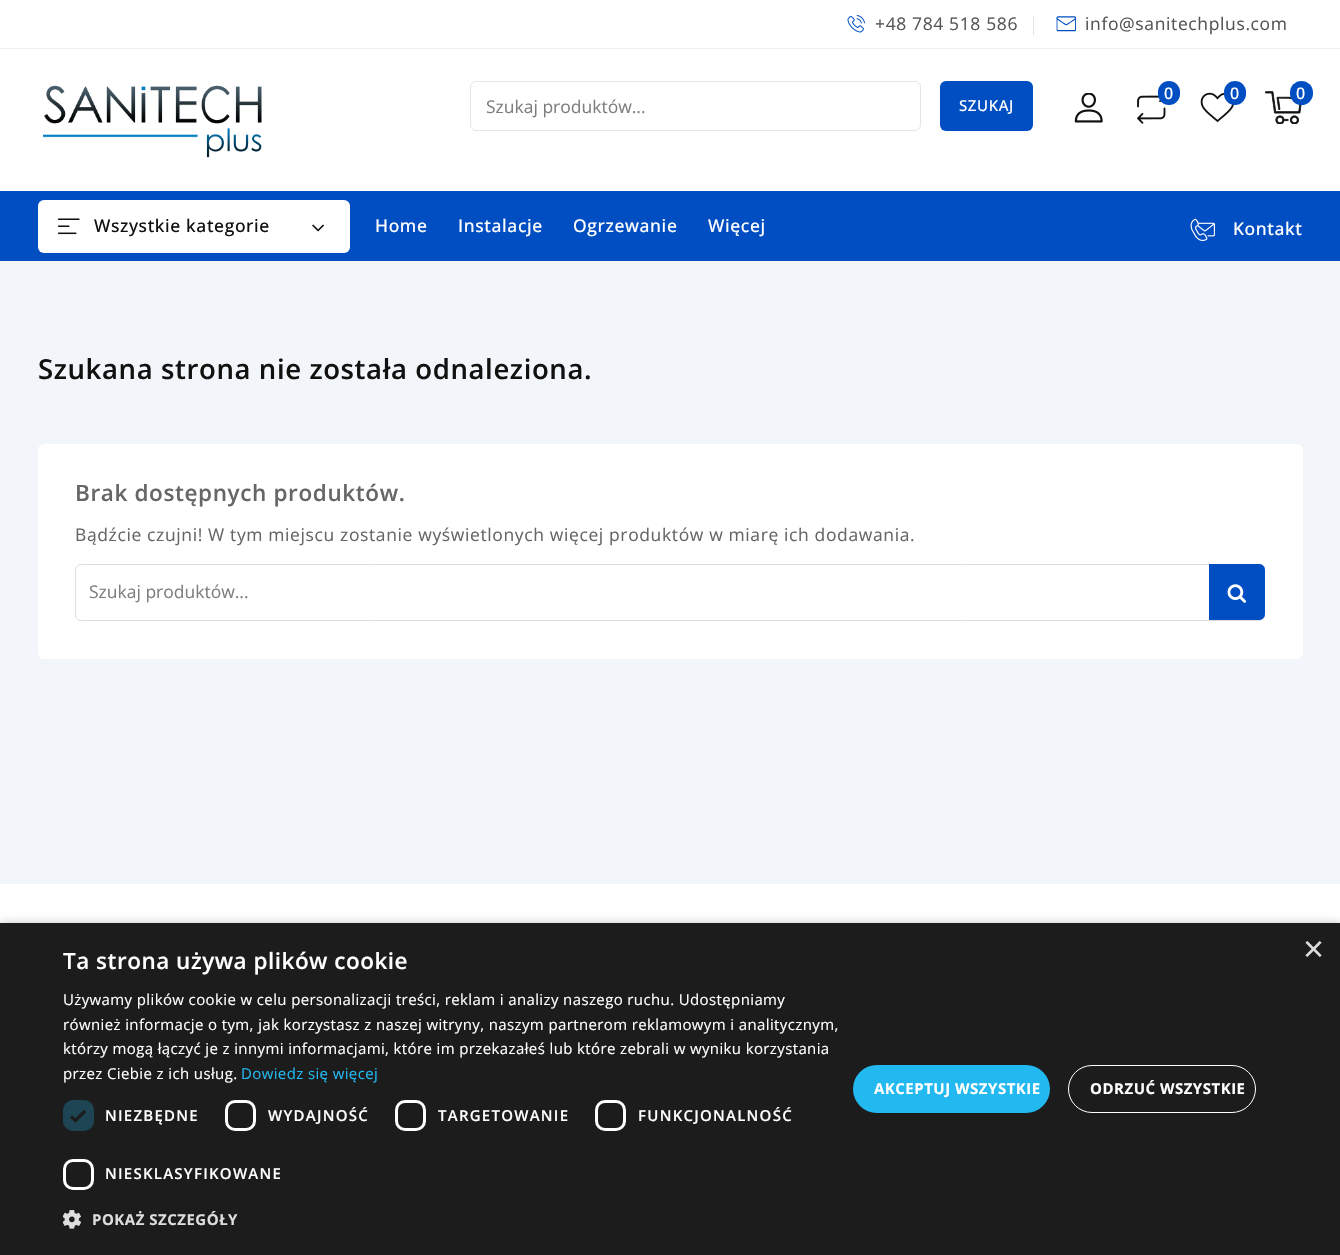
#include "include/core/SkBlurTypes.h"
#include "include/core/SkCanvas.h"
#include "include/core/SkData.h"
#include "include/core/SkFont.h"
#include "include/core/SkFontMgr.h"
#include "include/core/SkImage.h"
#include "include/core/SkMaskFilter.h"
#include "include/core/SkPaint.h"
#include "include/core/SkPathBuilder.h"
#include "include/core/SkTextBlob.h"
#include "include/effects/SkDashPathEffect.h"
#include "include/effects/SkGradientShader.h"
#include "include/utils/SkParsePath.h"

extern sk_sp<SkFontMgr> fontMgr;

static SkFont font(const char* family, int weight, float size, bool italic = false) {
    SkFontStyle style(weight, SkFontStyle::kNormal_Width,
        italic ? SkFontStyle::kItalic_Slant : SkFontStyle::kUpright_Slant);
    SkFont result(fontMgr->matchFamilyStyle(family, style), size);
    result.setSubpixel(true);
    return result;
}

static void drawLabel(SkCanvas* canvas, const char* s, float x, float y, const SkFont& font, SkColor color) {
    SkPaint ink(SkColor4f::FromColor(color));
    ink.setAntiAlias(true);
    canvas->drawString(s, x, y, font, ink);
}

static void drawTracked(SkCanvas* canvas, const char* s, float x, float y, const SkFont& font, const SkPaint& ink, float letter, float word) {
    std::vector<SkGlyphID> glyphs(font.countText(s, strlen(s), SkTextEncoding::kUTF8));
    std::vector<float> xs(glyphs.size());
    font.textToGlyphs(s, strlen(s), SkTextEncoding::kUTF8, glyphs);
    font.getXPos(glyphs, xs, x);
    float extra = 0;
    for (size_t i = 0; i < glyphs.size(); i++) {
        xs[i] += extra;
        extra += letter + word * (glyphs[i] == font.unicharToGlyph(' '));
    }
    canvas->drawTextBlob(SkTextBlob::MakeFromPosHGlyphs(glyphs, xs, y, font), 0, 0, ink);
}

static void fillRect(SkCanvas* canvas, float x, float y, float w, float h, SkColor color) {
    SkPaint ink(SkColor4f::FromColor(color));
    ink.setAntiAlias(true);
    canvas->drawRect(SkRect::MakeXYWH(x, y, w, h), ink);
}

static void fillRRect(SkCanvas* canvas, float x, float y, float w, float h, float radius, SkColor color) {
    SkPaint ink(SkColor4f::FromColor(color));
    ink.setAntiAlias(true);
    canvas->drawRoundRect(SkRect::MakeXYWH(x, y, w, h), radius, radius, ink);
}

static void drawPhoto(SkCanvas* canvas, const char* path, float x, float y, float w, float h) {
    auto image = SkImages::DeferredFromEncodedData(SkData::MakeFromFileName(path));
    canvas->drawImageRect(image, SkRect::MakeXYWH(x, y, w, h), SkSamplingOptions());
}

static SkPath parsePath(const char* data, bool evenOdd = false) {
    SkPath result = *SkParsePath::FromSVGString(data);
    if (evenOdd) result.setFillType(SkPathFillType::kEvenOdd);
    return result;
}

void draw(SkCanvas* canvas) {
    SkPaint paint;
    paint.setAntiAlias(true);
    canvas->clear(0xFFF2F5FA);
    fillRect(canvas, 0, 0, 1340, 48, 0xFFFFFFFF);
    fillRect(canvas, 0, 48, 1340, 1, 0xFFEEEEEE);
    drawPhoto(canvas, "assets/img1.png", 847, 15, 18, 18);
    SkFont font1 = font("Open Sans", 400, 17.5f);
    paint.setColor(0xFF555555);
    drawTracked(canvas, "+48 784 518 586", 875, 30, font1, paint, 0.62f, 0);
    fillRect(canvas, 1033, 16, 1, 19, 0xFFE5E5E5);
    drawPhoto(canvas, "assets/img2.png", 1056, 16, 20, 16);
    drawTracked(canvas, "info@sanitechplus.com", 1085, 30, font1, paint, 0.62f, 0);
    fillRect(canvas, 0, 49, 1340, 142, 0xFFFFFFFF);
    drawPhoto(canvas, "assets/img3.png", 43, 85, 219, 73);
    paint.setStroke(true);
    paint.setStrokeWidth(1);
    paint.setColor(0xFFE5E5E5);
    canvas->drawRoundRect(SkRect::MakeXYWH(470.5f, 81.5f, 450, 49), 5.5f, 5.5f, paint);
    drawLabel(canvas, "Szukaj produktów...", 486, 113, font1, 0xFF7E7E7E);
    fillRRect(canvas, 940, 81, 93, 50, 6, 0xFF004EC2);
    SkFont font2 = font("Open Sans", 500, 15);
    paint.setStroke(false);
    paint.setColor(0xFFFFFFFF);
    drawTracked(canvas, "SZUKAJ", 959, 111, font2, paint, 0.62f, 0);
    drawPhoto(canvas, "assets/img4.png", 1074, 93, 29, 30);
    drawPhoto(canvas, "assets/img5.png", 1137, 95, 29, 29);
    fillRRect(canvas, 1158, 81, 22, 24, 11, 0xFF004EC2);
    SkFont font3 = font("Open Sans", 500, 16);
    drawTracked(canvas, "0", 1164, 99, font3, paint, 0.62f, 0);
    drawPhoto(canvas, "assets/img6.png", 1200, 92, 34, 31);
    fillRRect(canvas, 1224, 81, 22, 24, 11, 0xFF004EC2);
    drawTracked(canvas, "0", 1230, 99, font3, paint, 0.62f, 0);
    drawPhoto(canvas, "assets/img7.png", 1265, 91, 37, 33);
    fillRRect(canvas, 1290, 81, 23, 24, 11.5f, 0xFF004EC2);
    drawTracked(canvas, "0", 1296, 99, font3, paint, 0.62f, 0);
    fillRect(canvas, 0, 191, 1340, 70, 0xFF004EC2);
    fillRRect(canvas, 38, 200, 312, 53, 6, 0xFFFFFFFF);
    drawPhoto(canvas, "assets/img8.png", 57, 218, 23, 17);
    SkFont font4 = font("Open Sans", 500, 17.5f);
    paint.setColor(0xFF111111);
    drawTracked(canvas, "Wszystkie kategorie", 94, 232, font4, paint, 0.62f, 0);
    drawPhoto(canvas, "assets/img9.png", 312, 224, 12, 8);
    paint.setColor(0xFFFFFFFF);
    drawTracked(canvas, "Home", 375, 232, font4, paint, 0.62f, 0);
    drawTracked(canvas, "Instalacje", 458, 232, font4, paint, 0.62f, 0);
    drawTracked(canvas, "Ogrzewanie", 573, 232, font4, paint, 0.62f, 0);
    drawTracked(canvas, "Więcej", 708, 232, font4, paint, 0.62f, 0);
    drawPhoto(canvas, "assets/img10.png", 1190, 218, 25, 23);
    drawTracked(canvas, "Kontakt", 1233, 235, font4, paint, 0.62f, 0);
    SkFont font5 = font("Open Sans", 600, 27.5f);
    paint.setColor(0xFF111111);
    drawTracked(canvas, "Szukana strona nie została odnaleziona.", 38, 379, font5, paint, 0.62f, 0);
    fillRRect(canvas, 38, 444, 1265, 215, 6, 0xFFFFFFFF);
    SkFont font6 = font("Open Sans", 600, 22.5f);
    paint.setColor(0xFF666666);
    drawTracked(canvas, "Brak dostępnych produktów.", 75, 501, font6, paint, 0.62f, 0);
    drawTracked(canvas, "Bądźcie czujni! W tym miejscu zostanie wyświetlonych więcej produktów w miarę ich dodawania.", 75, 541, font1, paint, 0.62f, 0);
    paint.setStroke(true);
    paint.setColor(0xFFDDDDDD);
    canvas->drawRoundRect(SkRect::MakeXYWH(75.5f, 564.5f, 1189, 56), 5.5f, 5.5f, paint);
    drawLabel(canvas, "Szukaj produktów...", 89, 598, font1, 0xFF7E7E7E);
    paint.setStroke(false);
    paint.setColor(0xFF004EC2);
    canvas->drawPath(parsePath("M1209 564H1259C1262.5 564 1265 566.5 1265 570V614C1265 617.5 1262.5 620 1259 620H1209Z"), paint);
    drawPhoto(canvas, "assets/img11.png", 1227, 584, 20, 19);
    fillRect(canvas, 0, 884, 1340, 39, 0xFFFFFFFF);
    paint.setColor(0x59000000);
    paint.setMaskFilter(SkMaskFilter::MakeBlur(kNormal_SkBlurStyle, 5));
    canvas->drawRect(SkRect::MakeXYWH(1, 925, 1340, 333), paint);
    paint.setMaskFilter(nullptr);
    fillRect(canvas, 0, 923, 1340, 332, 0xFF1C1C1C);
    SkFont font7 = font("Liberation Sans", 400, 36);
    drawLabel(canvas, "×", 1303, 961, font7, 0xFFDDDDDD);
    paint.setColor(0xFFFFFFFF);
    drawTracked(canvas, "Ta strona używa plików cookie", 63, 969, font6, paint, 0.5f, 0);
    SkFont font8 = font("Open Sans", 400, 15);
    drawTracked(canvas, "Używamy plików cookie w celu personalizacji treści, reklam i analizy naszego ruchu. Udostępniamy", 63, 1005, font8, paint, 0.38f, 0);
    drawTracked(canvas, "również informacje o tym, jak korzystasz z naszej witryny, naszym partnerom reklamowym i analitycznym,", 63, 1030, font8, paint, 0.38f, 0);
    drawTracked(canvas, "którzy mogą łączyć je z innymi informacjami, które im przekazałeś lub które zebrali w wyniku korzystania", 63, 1054, font8, paint, 0.38f, 0);
    drawTracked(canvas, "przez Ciebie z ich usług.", 63, 1079, font8, paint, 0.38f, 0);
    paint.setColor(0xFF22B8F0);
    drawTracked(canvas, "Dowiedz się więcej", 241, 1079, font8, paint, 0.38f, 0);
    fillRRect(canvas, 63, 1100, 31, 31, 10, 0xFF1E4553);
    paint.setStroke(true);
    paint.setStrokeWidth(3.3f);
    paint.setColor(0xFF1C1C1C);
    canvas->drawPath(parsePath("M71 1116.5L75.5 1120.5L85 1111"), paint);
    SkFont font9 = font("Open Sans", 600, 15);
    paint.setStroke(false);
    paint.setColor(0xFFFFFFFF);
    drawTracked(canvas, "NIEZBĘDNE", 105, 1121, font9, paint, 1.25f, 0);
    paint.setStroke(true);
    paint.setStrokeWidth(3);
    canvas->drawRoundRect(SkRect::MakeXYWH(226.5f, 1101.5f, 28, 28), 8.5f, 8.5f, paint);
    paint.setStroke(false);
    drawTracked(canvas, "WYDAJNOŚĆ", 268, 1121, font9, paint, 1.25f, 0);
    paint.setStroke(true);
    canvas->drawRoundRect(SkRect::MakeXYWH(396.5f, 1101.5f, 28, 28), 8.5f, 8.5f, paint);
    paint.setStroke(false);
    drawTracked(canvas, "TARGETOWANIE", 438, 1121, font9, paint, 1.25f, 0);
    paint.setStroke(true);
    canvas->drawRoundRect(SkRect::MakeXYWH(596.5f, 1101.5f, 28, 28), 8.5f, 8.5f, paint);
    paint.setStroke(false);
    drawTracked(canvas, "FUNKCJONALNOŚĆ", 638, 1121, font9, paint, 1.25f, 0);
    paint.setStroke(true);
    canvas->drawRoundRect(SkRect::MakeXYWH(64.5f, 1160.5f, 28, 28), 8.5f, 8.5f, paint);
    paint.setStroke(false);
    drawTracked(canvas, "NIESKLASYFIKOWANE", 105, 1179, font9, paint, 1.25f, 0);
    drawPhoto(canvas, "assets/img12.png", 63, 1210, 18, 19);
    SkFont font10 = font("Open Sans", 700, 15);
    paint.setColor(0xFFDDDDDD);
    drawTracked(canvas, "POKAŻ SZCZEGÓŁY", 92, 1225, font10, paint, 0.5f, 0);
    fillRRect(canvas, 853, 1065, 197, 48, 24, 0xFF22B8F0);
    paint.setColor(0xFFFFFFFF);
    drawTracked(canvas, "AKCEPTUJ WSZYSTKIE", 874, 1094, font10, paint, 0.5f, 0);
    paint.setStroke(true);
    paint.setStrokeWidth(1);
    canvas->drawRoundRect(SkRect::MakeXYWH(1068.5f, 1065.5f, 187, 47), 23.5f, 23.5f, paint);
    paint.setStroke(false);
    drawTracked(canvas, "ODRZUĆ WSZYSTKIE", 1090, 1094, font10, paint, 0.5f, 0);
}
